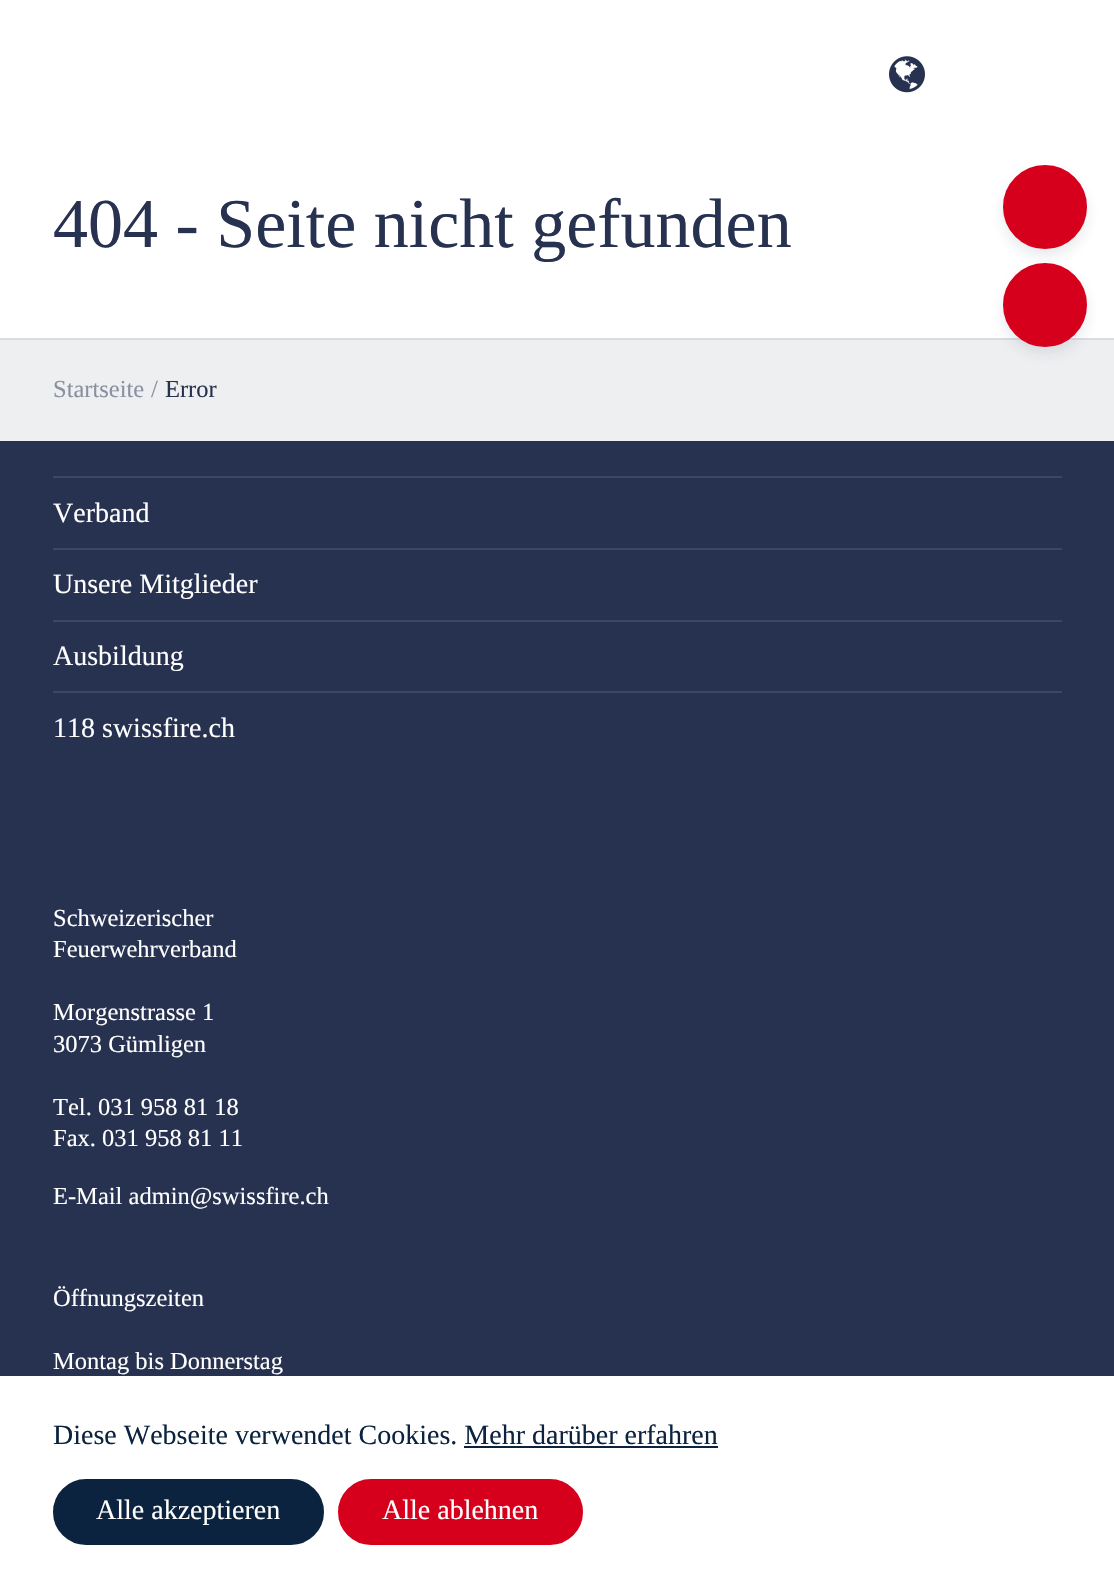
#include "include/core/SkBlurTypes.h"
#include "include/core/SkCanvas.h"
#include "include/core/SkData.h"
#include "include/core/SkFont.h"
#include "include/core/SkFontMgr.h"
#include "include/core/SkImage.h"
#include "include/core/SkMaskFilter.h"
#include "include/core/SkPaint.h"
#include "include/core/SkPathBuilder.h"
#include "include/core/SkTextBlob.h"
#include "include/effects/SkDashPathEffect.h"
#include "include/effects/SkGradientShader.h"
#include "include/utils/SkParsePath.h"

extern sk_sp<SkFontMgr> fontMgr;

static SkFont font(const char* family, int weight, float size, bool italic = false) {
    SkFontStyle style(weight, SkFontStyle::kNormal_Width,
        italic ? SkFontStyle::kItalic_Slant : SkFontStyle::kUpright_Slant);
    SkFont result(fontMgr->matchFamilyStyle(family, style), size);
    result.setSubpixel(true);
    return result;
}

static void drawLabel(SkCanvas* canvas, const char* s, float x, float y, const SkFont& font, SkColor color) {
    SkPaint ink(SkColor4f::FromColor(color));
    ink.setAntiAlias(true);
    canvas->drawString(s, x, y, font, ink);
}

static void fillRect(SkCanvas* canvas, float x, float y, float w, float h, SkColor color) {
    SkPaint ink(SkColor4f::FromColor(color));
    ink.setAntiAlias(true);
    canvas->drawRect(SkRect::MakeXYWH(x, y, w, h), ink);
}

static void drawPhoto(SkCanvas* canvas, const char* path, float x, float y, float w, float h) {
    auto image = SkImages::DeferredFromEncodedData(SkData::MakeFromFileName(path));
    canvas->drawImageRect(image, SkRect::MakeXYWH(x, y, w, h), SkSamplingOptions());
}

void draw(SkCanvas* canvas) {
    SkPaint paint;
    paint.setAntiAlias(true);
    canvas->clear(0xFFFFFFFF);
    drawPhoto(canvas, "assets/img1.png", 889, 56, 36, 37);
    SkFont font1 = font("Liberation Serif", 400, 70);
    drawLabel(canvas, "404 - Seite nicht gefunden", 53, 247, font1, 0xFF273150);
    paint.setColor(0x1A0C2340);
    paint.setMaskFilter(SkMaskFilter::MakeBlur(kNormal_SkBlurStyle, 7));
    canvas->drawRoundRect(SkRect::MakeXYWH(1003, 172, 84, 84), 42, 42, paint);
    paint.setMaskFilter(nullptr);
    paint.setColor(0xFFD6001C);
    canvas->drawCircle(1045, 207, 41, paint);
    paint.setStroke(true);
    paint.setStrokeWidth(2);
    canvas->drawCircle(1045, 207, 41, paint);
    fillRect(canvas, 0, 340, 1114, 101, 0xFFEEEFF1);
    fillRect(canvas, 0, 338, 1114, 2, 0xFFDADCE1);
    paint.setStroke(false);
    paint.setColor(0x1A0C2340);
    paint.setMaskFilter(SkMaskFilter::MakeBlur(kNormal_SkBlurStyle, 7));
    canvas->drawRoundRect(SkRect::MakeXYWH(1003, 270, 84, 84), 42, 42, paint);
    paint.setMaskFilter(nullptr);
    paint.setColor(0xFFD6001C);
    canvas->drawCircle(1045, 305, 41, paint);
    paint.setStroke(true);
    canvas->drawCircle(1045, 305, 41, paint);
    SkFont font2 = font("Liberation Serif", 400, 24.5f);
    drawLabel(canvas, "Startseite", 53, 397, font2, 0xFF8B90A1);
    drawLabel(canvas, "/", 151, 397, font2, 0xFF8B90A1);
    drawLabel(canvas, "Error", 165, 397, font2, 0xFF273150);
    fillRect(canvas, 0, 441, 1114, 935, 0xFF273150);
    fillRect(canvas, 53, 476, 1009, 2, 0xFF3D4662);
    SkFont font3 = font("Liberation Serif", 400, 28);
    drawLabel(canvas, "Verband", 53, 522, font3, 0xFFFFFFFF);
    fillRect(canvas, 53, 548, 1009, 2, 0xFF3D4662);
    drawLabel(canvas, "Unsere Mitglieder", 53, 593, font3, 0xFFFFFFFF);
    fillRect(canvas, 53, 620, 1009, 2, 0xFF3D4662);
    drawLabel(canvas, "Ausbildung", 53, 665, font3, 0xFFFFFFFF);
    fillRect(canvas, 53, 691, 1009, 2, 0xFF3D4662);
    drawLabel(canvas, "118 swissfire.ch", 53, 737, font3, 0xFFFFFFFF);
    drawLabel(canvas, "Schweizerischer", 53, 926, font2, 0xFFFFFFFF);
    drawLabel(canvas, "Feuerwehrverband", 53, 957, font2, 0xFFFFFFFF);
    drawLabel(canvas, "Morgenstrasse 1", 53, 1020, font2, 0xFFFFFFFF);
    drawLabel(canvas, "3073 Gümligen", 53, 1052, font2, 0xFFFFFFFF);
    drawLabel(canvas, "Tel. 031 958 81 18", 53, 1115, font2, 0xFFFFFFFF);
    drawLabel(canvas, "Fax. 031 958 81 11", 53, 1146, font2, 0xFFFFFFFF);
    drawLabel(canvas, "E-Mail admin@swissfire.ch", 53, 1204, font2, 0xFFFFFFFF);
    drawLabel(canvas, "Öffnungszeiten", 53, 1306, font2, 0xFFFFFFFF);
    drawLabel(canvas, "Montag bis Donnerstag", 53, 1369, font2, 0xFFFFFFFF);
    drawLabel(canvas, "Diese Webseite verwendet Cookies. Mehr darüber erfahren", 53, 1444, font3, 0xFF0C2340);
    fillRect(canvas, 464, 1446, 254, 2, 0xFF0C2340);
    paint.setStroke(false);
    paint.setColor(0xFF0C2340);
    canvas->drawRoundRect(SkRect::MakeXYWH(54, 1480, 269, 64), 32, 32, paint);
    paint.setStroke(true);
    canvas->drawRoundRect(SkRect::MakeXYWH(54, 1480, 269, 64), 32, 32, paint);
    drawLabel(canvas, "Alle akzeptieren", 96, 1519, font3, 0xFFFFFFFF);
    paint.setStroke(false);
    paint.setColor(0xFFD6001C);
    canvas->drawRoundRect(SkRect::MakeXYWH(339, 1480, 243, 64), 32, 32, paint);
    paint.setStroke(true);
    canvas->drawRoundRect(SkRect::MakeXYWH(339, 1480, 243, 64), 32, 32, paint);
    drawLabel(canvas, "Alle ablehnen", 382, 1519, font3, 0xFFFFFFFF);
}
